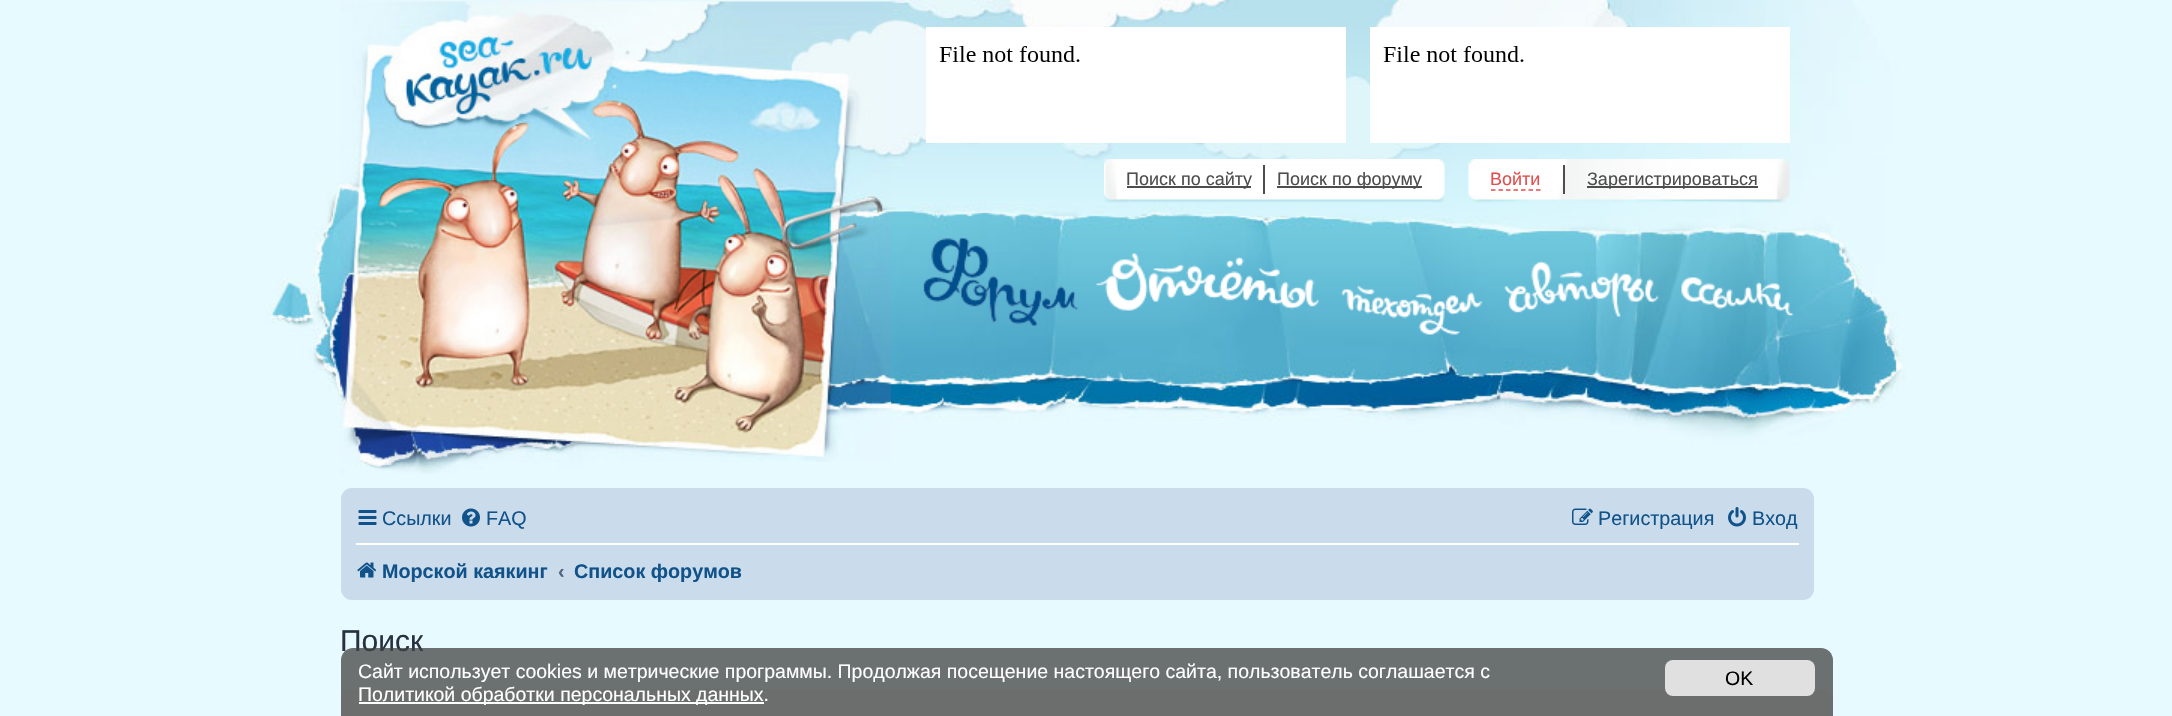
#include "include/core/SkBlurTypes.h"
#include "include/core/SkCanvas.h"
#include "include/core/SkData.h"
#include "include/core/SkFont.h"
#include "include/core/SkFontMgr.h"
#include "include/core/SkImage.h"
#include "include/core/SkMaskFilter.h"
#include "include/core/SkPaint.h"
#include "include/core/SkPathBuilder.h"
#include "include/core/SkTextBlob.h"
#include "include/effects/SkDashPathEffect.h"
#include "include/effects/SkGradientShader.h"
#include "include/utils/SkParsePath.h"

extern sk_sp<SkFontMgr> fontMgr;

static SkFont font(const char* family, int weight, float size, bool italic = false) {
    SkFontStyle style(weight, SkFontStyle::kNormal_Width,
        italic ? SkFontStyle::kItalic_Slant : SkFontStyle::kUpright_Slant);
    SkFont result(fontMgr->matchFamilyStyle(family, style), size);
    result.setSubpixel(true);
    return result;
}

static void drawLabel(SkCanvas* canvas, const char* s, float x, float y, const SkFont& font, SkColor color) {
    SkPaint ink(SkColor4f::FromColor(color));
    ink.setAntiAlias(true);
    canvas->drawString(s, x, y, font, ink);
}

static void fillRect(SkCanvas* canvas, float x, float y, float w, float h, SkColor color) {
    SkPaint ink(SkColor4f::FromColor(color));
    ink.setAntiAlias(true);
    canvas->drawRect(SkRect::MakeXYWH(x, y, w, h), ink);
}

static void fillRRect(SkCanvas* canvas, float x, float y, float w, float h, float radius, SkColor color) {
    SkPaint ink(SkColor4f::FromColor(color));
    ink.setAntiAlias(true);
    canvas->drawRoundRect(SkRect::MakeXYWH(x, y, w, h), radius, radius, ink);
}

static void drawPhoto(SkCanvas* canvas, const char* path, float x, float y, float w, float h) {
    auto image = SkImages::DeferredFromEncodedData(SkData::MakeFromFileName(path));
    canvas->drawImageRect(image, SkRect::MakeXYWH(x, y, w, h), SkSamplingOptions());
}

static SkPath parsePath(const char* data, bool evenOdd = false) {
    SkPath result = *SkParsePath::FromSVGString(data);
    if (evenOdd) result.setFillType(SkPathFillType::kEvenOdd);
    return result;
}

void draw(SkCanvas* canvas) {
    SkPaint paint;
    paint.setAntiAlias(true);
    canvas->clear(0xFFE7FAFF);
    drawPhoto(canvas, "assets/img1.png", 265, 0, 1641, 474);
    drawPhoto(canvas, "assets/img2.png", 340, 0, 551, 462);
    fillRect(canvas, 926, 27, 420, 116, 0xFFFFFFFF);
    drawPhoto(canvas, "assets/img3.png", 939, 46, 141, 16);
    fillRect(canvas, 1370, 27, 420, 116, 0xFFFFFFFF);
    drawPhoto(canvas, "assets/img3.png", 1383, 46, 141, 16);
    drawPhoto(canvas, "assets/img4.png", 1104, 159, 341, 44);
    fillRect(canvas, 1127, 186, 124, 2, 0xFF4E4D4D);
    SkFont font1 = font("Liberation Sans", 400, 18);
    drawLabel(canvas, "Поиск по сайту", 1126, 185, font1, 0xFF4E4D4D);
    fillRect(canvas, 1263, 165, 2, 29, 0xFF4E4D4D);
    fillRect(canvas, 1277, 186, 145, 2, 0xFF4E4D4D);
    drawLabel(canvas, "Поиск по форуму", 1277, 185, font1, 0xFF4E4D4D);
    drawPhoto(canvas, "assets/img5.png", 1468, 159, 322, 44);
    paint.setStroke(true);
    paint.setStrokeWidth(1.5f);
    paint.setColor(0xFFE24D4D);
    paint.setPathEffect(SkDashPathEffect::Make({{4.5f, 3}}, 0));
    canvas->drawPath(parsePath("M1491 190H1540.5"), paint);
    paint.setPathEffect(nullptr);
    drawLabel(canvas, "Войти", 1490, 185, font1, 0xFFE24D4D);
    fillRect(canvas, 1563, 165, 2, 29, 0xFF4E4D4D);
    fillRect(canvas, 1587, 186, 171, 2, 0xFF4E4D4D);
    drawLabel(canvas, "Зарегистрироваться", 1587, 185, font1, 0xFF4E4D4D);
    drawPhoto(canvas, "assets/img6.png", 922, 237, 157, 90);
    drawPhoto(canvas, "assets/img7.png", 1096, 253, 223, 58);
    drawPhoto(canvas, "assets/img8.png", 1340, 285, 143, 50);
    drawPhoto(canvas, "assets/img9.png", 1504, 261, 156, 56);
    drawPhoto(canvas, "assets/img10.png", 1681, 277, 112, 40);
    fillRRect(canvas, 341, 488, 1473, 112, 11, 0xFFCADCEB);
    drawPhoto(canvas, "assets/img11.png", 358, 510, 19, 15);
    SkFont font2 = font("Liberation Sans", 400, 19.75f);
    drawLabel(canvas, "Ссылки", 382, 525, font2, 0xFF105289);
    drawPhoto(canvas, "assets/img12.png", 462, 508, 18, 19);
    drawLabel(canvas, "FAQ", 486, 525, font2, 0xFF105289);
    drawPhoto(canvas, "assets/img13.png", 1572, 508, 21, 17);
    drawLabel(canvas, "Регистрация", 1598, 525, font2, 0xFF105289);
    drawPhoto(canvas, "assets/img14.png", 1728, 507, 18, 20);
    drawLabel(canvas, "Вход", 1752, 525, font2, 0xFF105289);
    fillRect(canvas, 356, 543, 1443, 2, 0xFFFFFFFF);
    drawPhoto(canvas, "assets/img15.png", 357, 562, 20, 16);
    SkFont font3 = font("Liberation Sans", 700, 19.75f);
    drawLabel(canvas, "Морской каякинг", 382, 578, font3, 0xFF105289);
    drawLabel(canvas, "‹", 558, 578, font3, 0xFF536482);
    drawLabel(canvas, "Список форумов", 574, 578, font3, 0xFF105289);
    SkFont font4 = font("Liberation Sans", 400, 30);
    drawLabel(canvas, "Поиск", 340, 651, font4, 0xFF28313F);
    fillRRect(canvas, 341, 689, 1492, 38, 11, 0xFFECF1F3);
    paint.setStroke(false);
    paint.setColor(0xBF424242);
    canvas->drawPath(parsePath("M353 648H1821C1827.5 648 1833 653.5 1833 660V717H341V660C341 653.5 346.5 648 353 648Z"), paint);
    SkFont font5 = font("Liberation Sans", 400, 19.5f);
    drawLabel(canvas, "Сайт использует cookies и метрические программы. Продолжая посещение настоящего сайта, пользователь соглашается с", 358, 678, font5, 0xFFFFFFFF);
    fillRect(canvas, 359, 702, 405, 2, 0xFFFFFFFF);
    drawLabel(canvas, "Политикой обработки персональных данных.", 358, 701, font5, 0xFFFFFFFF);
    fillRRect(canvas, 1665, 660, 150, 36, 8, 0xDBF2F2F2);
    drawLabel(canvas, "OK", 1725, 685, font5, 0xFF000000);
}
